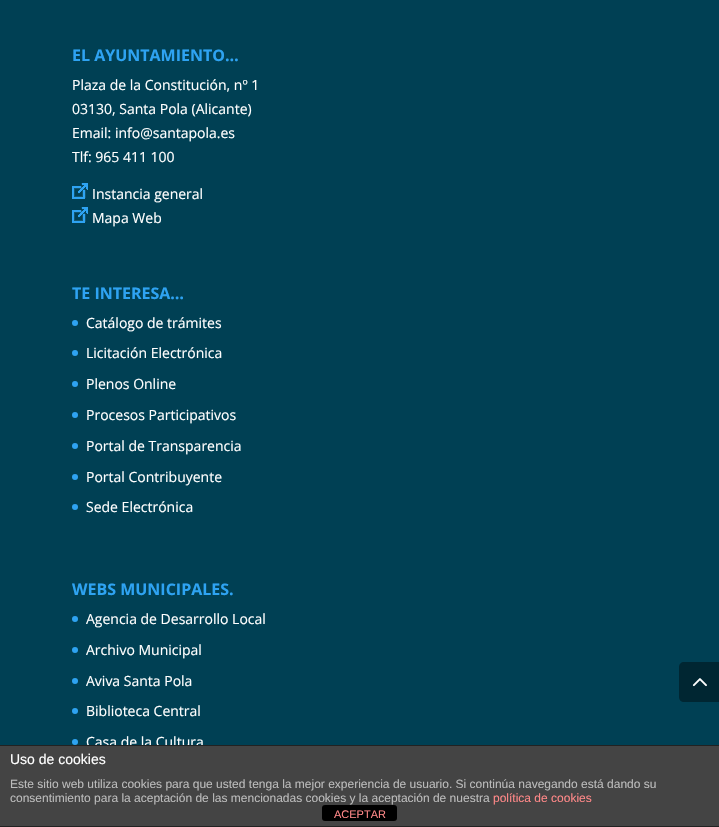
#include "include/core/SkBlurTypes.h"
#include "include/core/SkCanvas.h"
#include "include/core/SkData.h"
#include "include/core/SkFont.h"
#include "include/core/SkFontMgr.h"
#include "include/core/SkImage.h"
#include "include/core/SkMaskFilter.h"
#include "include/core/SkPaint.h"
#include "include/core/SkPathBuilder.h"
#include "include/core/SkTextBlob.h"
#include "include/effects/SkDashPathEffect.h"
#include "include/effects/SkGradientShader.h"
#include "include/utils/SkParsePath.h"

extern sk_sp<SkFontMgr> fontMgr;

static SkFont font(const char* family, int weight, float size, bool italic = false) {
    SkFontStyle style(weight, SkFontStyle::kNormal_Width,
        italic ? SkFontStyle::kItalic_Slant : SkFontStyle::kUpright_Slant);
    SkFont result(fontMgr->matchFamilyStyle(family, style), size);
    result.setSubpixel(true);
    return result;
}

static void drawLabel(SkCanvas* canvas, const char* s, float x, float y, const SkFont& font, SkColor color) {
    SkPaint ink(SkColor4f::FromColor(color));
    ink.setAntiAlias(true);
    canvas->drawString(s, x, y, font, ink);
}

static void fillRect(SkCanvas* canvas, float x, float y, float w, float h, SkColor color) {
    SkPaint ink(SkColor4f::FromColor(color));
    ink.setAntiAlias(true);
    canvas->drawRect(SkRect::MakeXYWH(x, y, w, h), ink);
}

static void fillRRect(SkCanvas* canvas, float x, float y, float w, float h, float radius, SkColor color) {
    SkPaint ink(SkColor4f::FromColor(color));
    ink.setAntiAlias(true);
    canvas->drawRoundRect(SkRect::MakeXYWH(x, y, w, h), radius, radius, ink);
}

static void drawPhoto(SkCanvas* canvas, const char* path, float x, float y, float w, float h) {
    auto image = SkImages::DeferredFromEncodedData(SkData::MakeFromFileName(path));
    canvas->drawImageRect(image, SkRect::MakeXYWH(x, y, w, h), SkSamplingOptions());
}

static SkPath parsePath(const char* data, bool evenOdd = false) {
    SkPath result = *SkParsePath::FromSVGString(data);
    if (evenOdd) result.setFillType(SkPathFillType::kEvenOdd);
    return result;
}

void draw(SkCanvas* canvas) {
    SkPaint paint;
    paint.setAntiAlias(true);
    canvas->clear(0xFF004054);
    SkFont font1 = font("Open Sans", 700, 16);
    drawLabel(canvas, "EL AYUNTAMIENTO…", 72, 61, font1, 0xFF2EA3F2);
    SkFont font2 = font("Open Sans", 400, 14);
    drawLabel(canvas, "Plaza de la Constitución, nº 1", 72, 90, font2, 0xFFFFFFFF);
    drawLabel(canvas, "03130, Santa Pola (Alicante)", 72, 114, font2, 0xFFFFFFFF);
    drawLabel(canvas, "Email: info@santapola.es", 72, 138, font2, 0xFFFFFFFF);
    drawLabel(canvas, "Tlf: 965 411 100", 72, 162, font2, 0xFFFFFFFF);
    drawPhoto(canvas, "assets/img1.png", 72, 183, 16, 16);
    drawLabel(canvas, "Instancia general", 92, 199, font2, 0xFFFFFFFF);
    drawPhoto(canvas, "assets/img1.png", 72, 207, 16, 16);
    drawLabel(canvas, "Mapa Web", 92, 223, font2, 0xFFFFFFFF);
    drawLabel(canvas, "TE INTERESA…", 72, 299, font1, 0xFF2EA3F2);
    paint.setColor(0xFF2EA3F2);
    canvas->drawCircle(75, 323, 3, paint);
    drawLabel(canvas, "Catálogo de trámites", 86, 328, font2, 0xFFFFFFFF);
    canvas->drawCircle(75, 353, 3, paint);
    drawLabel(canvas, "Licitación Electrónica", 86, 358, font2, 0xFFFFFFFF);
    canvas->drawCircle(75, 384, 3, paint);
    drawLabel(canvas, "Plenos Online", 86, 389, font2, 0xFFFFFFFF);
    canvas->drawCircle(75, 415, 3, paint);
    drawLabel(canvas, "Procesos Participativos", 86, 420, font2, 0xFFFFFFFF);
    canvas->drawCircle(75, 446, 3, paint);
    drawLabel(canvas, "Portal de Transparencia", 86, 451, font2, 0xFFFFFFFF);
    canvas->drawCircle(75, 477, 3, paint);
    drawLabel(canvas, "Portal Contribuyente", 86, 482, font2, 0xFFFFFFFF);
    canvas->drawCircle(75, 507, 3, paint);
    drawLabel(canvas, "Sede Electrónica", 86, 512, font2, 0xFFFFFFFF);
    drawLabel(canvas, "WEBS MUNICIPALES.", 72, 595, font1, 0xFF2EA3F2);
    canvas->drawCircle(75, 619, 3, paint);
    drawLabel(canvas, "Agencia de Desarrollo Local", 86, 624, font2, 0xFFFFFFFF);
    canvas->drawCircle(75, 650, 3, paint);
    drawLabel(canvas, "Archivo Municipal", 86, 655, font2, 0xFFFFFFFF);
    canvas->drawCircle(75, 681, 3, paint);
    drawLabel(canvas, "Aviva Santa Pola", 86, 686, font2, 0xFFFFFFFF);
    canvas->drawCircle(75, 711, 3, paint);
    drawLabel(canvas, "Biblioteca Central", 86, 716, font2, 0xFFFFFFFF);
    canvas->drawCircle(75, 742, 3, paint);
    drawLabel(canvas, "Casa de la Cultura", 86, 747, font2, 0xFFFFFFFF);
    paint.setColor(0xFF002632);
    canvas->drawPath(parsePath("M684 662H719V702H684C681 702 679 700 679 697V667C679 664 681 662 684 662Z"), paint);
    drawPhoto(canvas, "assets/img2.png", 692, 678, 15, 9);
    fillRect(canvas, 0, 746, 719, 80, 0xFF444444);
    fillRect(canvas, 0, 745, 719, 1, 0xFF222222);
    fillRect(canvas, 0, 826, 719, 1, 0xFF222222);
    SkFont font3 = font("Liberation Sans", 400, 14);
    drawLabel(canvas, "Uso de cookies", 10, 764, font3, 0xFFFFFFFF);
    SkFont font4 = font("Liberation Sans", 400, 12);
    drawLabel(canvas, "Este sitio web utiliza cookies para que usted tenga la mejor experiencia de usuario. Si continúa navegando está dando su", 10, 788, font4, 0xFFBBBBBB);
    drawLabel(canvas, "consentimiento para la aceptación de las mencionadas cookies y la aceptación de nuestra", 10, 802, font4, 0xFFBBBBBB);
    drawLabel(canvas, "política de cookies", 493, 802, font4, 0xFFFF8888);
    fillRRect(canvas, 322, 805, 75, 16, 3, 0xFF000000);
    SkFont font5 = font("Liberation Sans", 400, 11);
    drawLabel(canvas, "ACEPTAR", 334, 818, font5, 0xFFFF8888);
}
